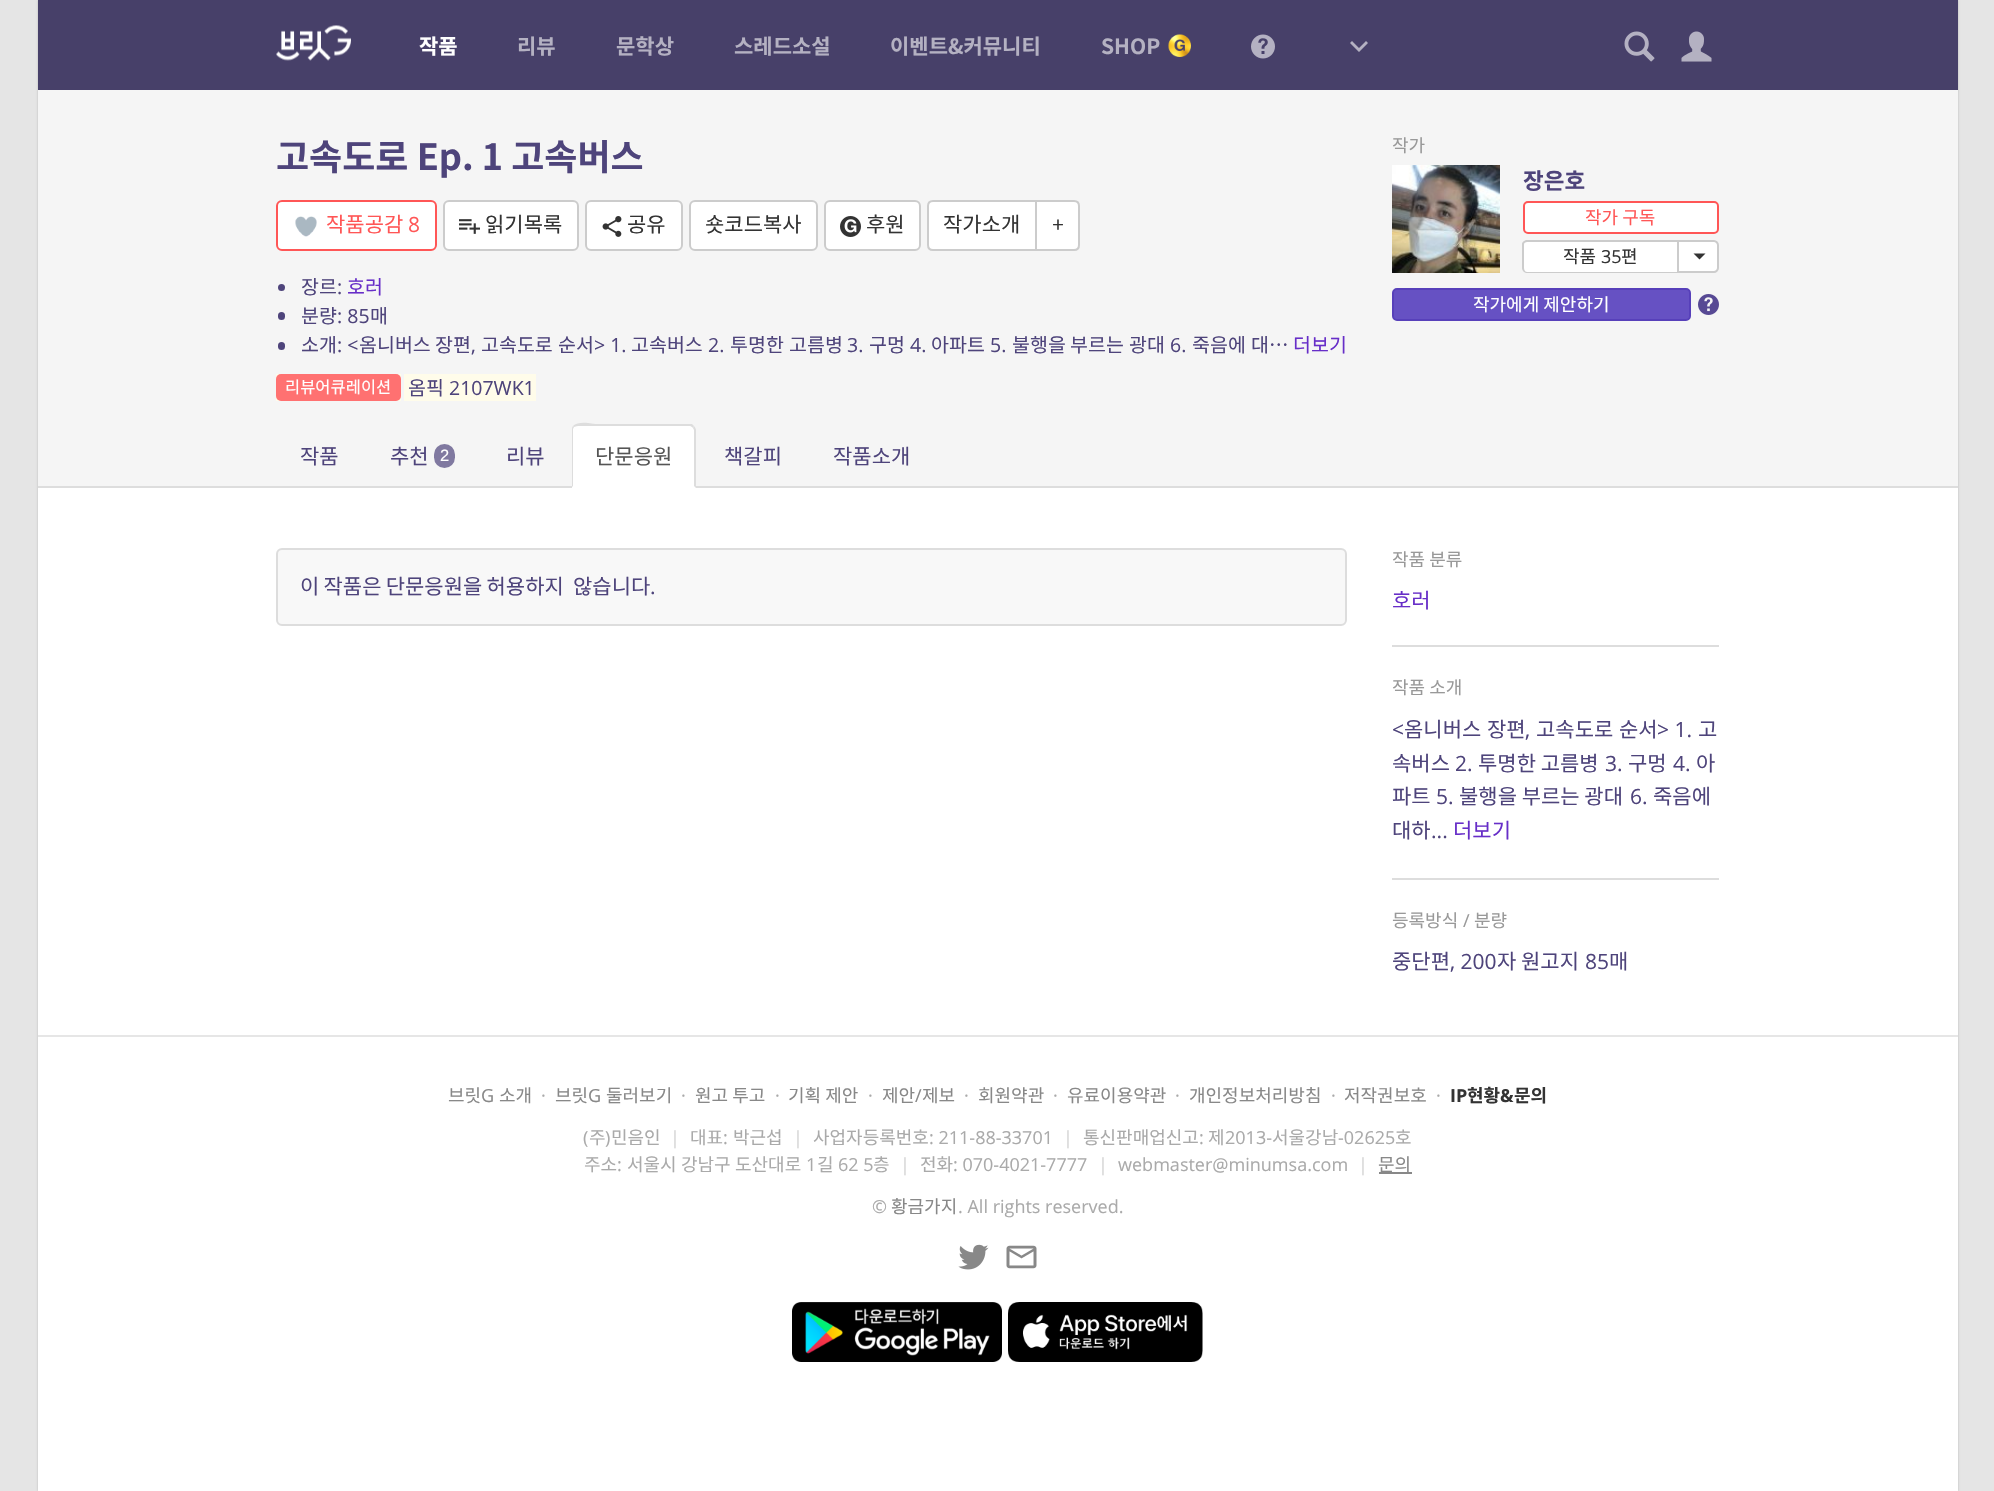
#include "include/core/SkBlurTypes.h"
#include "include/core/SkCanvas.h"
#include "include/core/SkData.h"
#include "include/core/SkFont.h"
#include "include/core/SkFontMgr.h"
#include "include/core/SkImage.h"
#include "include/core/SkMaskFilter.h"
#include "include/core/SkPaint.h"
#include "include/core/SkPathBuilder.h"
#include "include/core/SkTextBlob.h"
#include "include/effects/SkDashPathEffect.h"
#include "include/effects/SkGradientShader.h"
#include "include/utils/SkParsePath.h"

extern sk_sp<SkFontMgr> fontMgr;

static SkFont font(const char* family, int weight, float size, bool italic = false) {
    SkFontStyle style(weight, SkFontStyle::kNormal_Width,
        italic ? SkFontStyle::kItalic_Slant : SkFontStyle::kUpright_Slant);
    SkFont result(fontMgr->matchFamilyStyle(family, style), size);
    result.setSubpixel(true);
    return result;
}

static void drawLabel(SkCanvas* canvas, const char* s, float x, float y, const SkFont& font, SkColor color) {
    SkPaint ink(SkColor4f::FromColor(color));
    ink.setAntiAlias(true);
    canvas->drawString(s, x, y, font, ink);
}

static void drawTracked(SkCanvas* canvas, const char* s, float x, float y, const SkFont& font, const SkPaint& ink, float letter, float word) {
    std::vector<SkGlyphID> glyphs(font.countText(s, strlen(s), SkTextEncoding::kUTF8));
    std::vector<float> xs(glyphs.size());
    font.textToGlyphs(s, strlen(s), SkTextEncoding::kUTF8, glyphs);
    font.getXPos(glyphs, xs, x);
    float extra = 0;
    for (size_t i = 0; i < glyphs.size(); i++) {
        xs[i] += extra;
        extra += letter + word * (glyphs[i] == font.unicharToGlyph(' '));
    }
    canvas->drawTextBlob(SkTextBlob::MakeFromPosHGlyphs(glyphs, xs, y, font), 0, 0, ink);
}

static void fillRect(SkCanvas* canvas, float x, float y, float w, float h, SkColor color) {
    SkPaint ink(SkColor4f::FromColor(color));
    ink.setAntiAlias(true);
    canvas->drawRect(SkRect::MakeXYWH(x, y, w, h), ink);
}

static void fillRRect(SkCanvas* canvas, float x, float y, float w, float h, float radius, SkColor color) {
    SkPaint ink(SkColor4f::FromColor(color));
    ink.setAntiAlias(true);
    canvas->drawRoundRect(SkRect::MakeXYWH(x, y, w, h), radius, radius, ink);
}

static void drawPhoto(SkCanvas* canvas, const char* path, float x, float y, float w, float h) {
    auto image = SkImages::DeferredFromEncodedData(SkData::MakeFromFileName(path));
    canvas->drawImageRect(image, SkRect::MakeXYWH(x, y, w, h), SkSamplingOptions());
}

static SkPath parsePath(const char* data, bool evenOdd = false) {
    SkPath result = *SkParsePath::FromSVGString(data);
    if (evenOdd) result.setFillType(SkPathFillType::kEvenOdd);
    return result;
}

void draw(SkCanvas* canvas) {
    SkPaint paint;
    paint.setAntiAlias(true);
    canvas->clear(0xFFE5E5E5);
    paint.setColor(0x33000000);
    paint.setMaskFilter(SkMaskFilter::MakeBlur(kNormal_SkBlurStyle, 1));
    canvas->drawRect(SkRect::MakeXYWH(38, 0, 1920, 1491), paint);
    paint.setMaskFilter(nullptr);
    fillRect(canvas, 38, 488, 1920, 1003, 0xFFFFFFFF);
    fillRect(canvas, 38, 0, 1920, 90, 0xFF474069);
    drawPhoto(canvas, "assets/img1.png", 276, 25, 75, 36);
    SkFont font1 = font("Noto Sans KR", 700, 21);
    drawLabel(canvas, "작품", 419, 54, font1, 0xFFFFFFFF);
    drawLabel(canvas, "리뷰", 517, 54, font1, 0xFFB4B1C2);
    drawLabel(canvas, "문학상", 616, 54, font1, 0xFFB4B1C2);
    drawLabel(canvas, "스레드소설", 734, 54, font1, 0xFFB4B1C2);
    drawLabel(canvas, "이벤트&커뮤니티", 890, 54, font1, 0xFFB4B1C2);
    drawLabel(canvas, "SHOP", 1101, 54, font1, 0xFFB4B1C2);
    drawPhoto(canvas, "assets/img2.png", 1168, 34, 23, 23);
    drawPhoto(canvas, "assets/img3.png", 1251, 34, 24, 25);
    paint.setColor(0xFFB4B1C2);
    canvas->drawPath(parsePath("M1359 48L1352 41L1350 43L1359 52L1368 43L1366 41Z"), paint);
    drawPhoto(canvas, "assets/img4.png", 1624, 31, 31, 31);
    drawPhoto(canvas, "assets/img5.png", 1681, 31, 31, 31);
    fillRect(canvas, 38, 90, 1920, 396, 0xFFF5F5F5);
    fillRect(canvas, 38, 486, 1920, 2, 0xFFDDDDDD);
    SkFont font2 = font("Noto Sans KR", 700, 36);
    drawLabel(canvas, "고속도로 Ep. 1 고속버스", 276, 170, font2, 0xFF4E447B);
    paint.setColor(0xFFFFFFFF);
    canvas->drawRoundRect(SkRect::MakeXYWH(277, 201, 159, 49), 5, 5, paint);
    paint.setStroke(true);
    paint.setStrokeWidth(2);
    paint.setColor(0xFFFF5656);
    canvas->drawRoundRect(SkRect::MakeXYWH(277, 201, 159, 49), 5, 5, paint);
    drawPhoto(canvas, "assets/img6.png", 295, 216, 22, 21);
    SkFont font3 = font("Noto Sans KR", 400, 21);
    drawLabel(canvas, "작품공감", 326, 232, font3, 0xFFFF5656);
    SkFont font4 = font("Open Sans", 400, 21);
    drawLabel(canvas, "8", 408, 232, font4, 0xFFFF5656);
    paint.setStroke(false);
    paint.setColor(0xFFFFFFFF);
    canvas->drawRoundRect(SkRect::MakeXYWH(444, 201, 134, 49), 5, 5, paint);
    paint.setStroke(true);
    paint.setColor(0xFFCCCCCC);
    canvas->drawRoundRect(SkRect::MakeXYWH(444, 201, 134, 49), 5, 5, paint);
    drawPhoto(canvas, "assets/img7.png", 459, 219, 21, 15);
    drawLabel(canvas, "읽기목록", 485, 232, font3, 0xFF333333);
    paint.setStroke(false);
    paint.setColor(0xFFFFFFFF);
    canvas->drawRoundRect(SkRect::MakeXYWH(586, 201, 96, 49), 5, 5, paint);
    paint.setStroke(true);
    paint.setColor(0xFFCCCCCC);
    canvas->drawRoundRect(SkRect::MakeXYWH(586, 201, 96, 49), 5, 5, paint);
    drawPhoto(canvas, "assets/img8.png", 602, 216, 20, 21);
    drawLabel(canvas, "공유", 627, 232, font3, 0xFF333333);
    paint.setStroke(false);
    paint.setColor(0xFFFFFFFF);
    canvas->drawRoundRect(SkRect::MakeXYWH(690, 201, 127, 49), 5, 5, paint);
    paint.setStroke(true);
    paint.setColor(0xFFCCCCCC);
    canvas->drawRoundRect(SkRect::MakeXYWH(690, 201, 127, 49), 5, 5, paint);
    drawLabel(canvas, "숏코드복사", 705, 232, font3, 0xFF333333);
    paint.setStroke(false);
    paint.setColor(0xFFFFFFFF);
    canvas->drawRoundRect(SkRect::MakeXYWH(825, 201, 95, 49), 5, 5, paint);
    paint.setStroke(true);
    paint.setColor(0xFFCCCCCC);
    canvas->drawRoundRect(SkRect::MakeXYWH(825, 201, 95, 49), 5, 5, paint);
    drawPhoto(canvas, "assets/img9.png", 840, 216, 21, 21);
    drawLabel(canvas, "후원", 866, 232, font3, 0xFF333333);
    paint.setStroke(false);
    paint.setColor(0xFFFFFFFF);
    canvas->drawPath(parsePath("M933 201H1036V250H933C930 250 928 248 928 245V206C928 203 930 201 933 201Z"), paint);
    paint.setStroke(true);
    paint.setColor(0xFFCCCCCC);
    canvas->drawPath(parsePath("M933 201H1036V250H933C930 250 928 248 928 245V206C928 203 930 201 933 201Z"), paint);
    drawLabel(canvas, "작가소개", 943, 232, font3, 0xFF333333);
    paint.setStroke(false);
    paint.setColor(0xFFFFFFFF);
    canvas->drawPath(parsePath("M1036 201H1074C1077 201 1079 203 1079 206V245C1079 248 1077 250 1074 250H1036Z"), paint);
    paint.setStroke(true);
    paint.setColor(0xFFCCCCCC);
    canvas->drawPath(parsePath("M1036 201H1074C1077 201 1079 203 1079 206V245C1079 248 1077 250 1074 250H1036Z"), paint);
    drawLabel(canvas, "+", 1052, 232, font4, 0xFF333333);
    paint.setStroke(false);
    paint.setColor(0xFF4E447B);
    canvas->drawCircle(281.5f, 287.5f, 3.5f, paint);
    SkFont font5 = font("Noto Sans KR", 400, 19.5f);
    drawLabel(canvas, "장르", 301, 294, font5, 0xFF4E447B);
    SkFont font6 = font("Open Sans", 400, 19.5f);
    drawLabel(canvas, ":", 337, 294, font6, 0xFF4E447B);
    drawLabel(canvas, "호러", 347, 294, font5, 0xFF672EC8);
    fillRRect(canvas, 278, 312, 7, 8, 3.5f, 0xFF4E447B);
    drawLabel(canvas, "분량", 301, 323, font5, 0xFF4E447B);
    drawLabel(canvas, ": 85", 337, 323, font6, 0xFF4E447B);
    drawLabel(canvas, "매", 370, 323, font5, 0xFF4E447B);
    fillRRect(canvas, 278, 342, 7, 8, 3.5f, 0xFF4E447B);
    drawLabel(canvas, "소개", 301, 352, font5, 0xFF4E447B);
    drawLabel(canvas, ": <", 337, 352, font6, 0xFF4E447B);
    drawLabel(canvas, "옴니버스", 359, 352, font5, 0xFF4E447B);
    drawLabel(canvas, "장편", 435, 352, font5, 0xFF4E447B);
    drawLabel(canvas, ",", 471, 352, font6, 0xFF4E447B);
    drawLabel(canvas, "고속도로", 481, 352, font5, 0xFF4E447B);
    drawLabel(canvas, "순서", 558, 352, font5, 0xFF4E447B);
    drawLabel(canvas, "> 1.", 594, 352, font6, 0xFF4E447B);
    drawLabel(canvas, "고속버스", 631, 352, font5, 0xFF4E447B);
    drawLabel(canvas, "2.", 708, 352, font6, 0xFF4E447B);
    drawLabel(canvas, "투명한", 730, 352, font5, 0xFF4E447B);
    drawLabel(canvas, "고름병", 789, 352, font5, 0xFF4E447B);
    drawLabel(canvas, "3.", 847, 352, font6, 0xFF4E447B);
    drawLabel(canvas, "구멍", 869, 352, font5, 0xFF4E447B);
    drawLabel(canvas, "4.", 910, 352, font6, 0xFF4E447B);
    drawLabel(canvas, "아파트", 931, 352, font5, 0xFF4E447B);
    drawLabel(canvas, "5.", 990, 352, font6, 0xFF4E447B);
    drawLabel(canvas, "불행을", 1012, 352, font5, 0xFF4E447B);
    drawLabel(canvas, "부르는", 1070, 352, font5, 0xFF4E447B);
    drawLabel(canvas, "광대", 1129, 352, font5, 0xFF4E447B);
    drawLabel(canvas, "6.", 1170, 352, font6, 0xFF4E447B);
    drawLabel(canvas, "죽음에", 1192, 352, font5, 0xFF4E447B);
    drawLabel(canvas, "대…", 1251, 352, font5, 0xFF4E447B);
    drawLabel(canvas, "더보기", 1293, 352, font5, 0xFF672EC8);
    fillRect(canvas, 276, 374, 125, 27, 0xFFFFFCEA);
    fillRect(canvas, 404, 374, 132, 27, 0xFFFFFCEA);
    fillRRect(canvas, 276, 374, 125, 27, 5, 0xFFFF7171);
    SkFont font7 = font("Noto Sans KR", 400, 16.5f);
    drawLabel(canvas, "리뷰어큐레이션", 285, 393, font7, 0xFFFFFFFF);
    drawLabel(canvas, "옴픽", 408, 395, font5, 0xFF4E447B);
    drawLabel(canvas, "2107WK1", 449, 395, font6, 0xFF4E447B);
    SkFont font8 = font("Noto Sans KR", 400, 18);
    drawLabel(canvas, "작가", 1392, 152, font8, 0xFF999999);
    drawPhoto(canvas, "assets/img10.png", 1392, 165, 108, 108);
    SkFont font9 = font("Noto Sans KR", 700, 22.5f);
    drawLabel(canvas, "장은호", 1523, 189, font9, 0xFF4E447B);
    paint.setColor(0xFFFFFFFF);
    canvas->drawRoundRect(SkRect::MakeXYWH(1524, 202, 194, 31), 4, 4, paint);
    paint.setStroke(true);
    paint.setColor(0xFFFF5656);
    canvas->drawRoundRect(SkRect::MakeXYWH(1524, 202, 194, 31), 4, 4, paint);
    drawLabel(canvas, "작가 구독", 1585, 224, font8, 0xFFFF5656);
    paint.setStroke(false);
    paint.setColor(0xFFFFFFFF);
    canvas->drawPath(parsePath("M1527 242H1677V272H1527C1525.5 272 1524 270.5 1524 269V245C1524 243.5 1525.5 242 1527 242Z"), paint);
    paint.setColor(0xFFCCCCCC);
    canvas->drawPath(parsePath("M1527 240H1677V273H1527C1525 273 1522 271 1522 268V244C1522 242 1525 240 1527 240ZM1527 242H1677V272H1527C1525 272 1524 270 1524 268V244C1524 243 1525 242 1527 242Z", true), paint);
    drawLabel(canvas, "작품", 1563, 263, font8, 0xFF333333);
    SkFont font10 = font("Open Sans", 400, 18);
    drawLabel(canvas, "35", 1601, 263, font10, 0xFF333333);
    drawLabel(canvas, "편", 1621, 263, font8, 0xFF333333);
    paint.setColor(0xFFFFFFFF);
    canvas->drawPath(parsePath("M1678 241H1714C1716 241 1718 243 1718 245V268C1718 270 1716 272 1714 272H1678Z"), paint);
    paint.setStroke(true);
    paint.setColor(0xFFCCCCCC);
    canvas->drawPath(parsePath("M1678 241H1714C1716 241 1718 243 1718 245V268C1718 270 1716 272 1714 272H1678Z"), paint);
    paint.setStroke(false);
    paint.setColor(0xFF333333);
    canvas->drawPath(parsePath("M1693.5 253.5H1705.5L1699.5 259.5Z"), paint);
    paint.setColor(0xFF6651C3);
    canvas->drawRoundRect(SkRect::MakeXYWH(1393, 289, 297, 31), 4, 4, paint);
    paint.setStroke(true);
    paint.setColor(0xFF5740BA);
    canvas->drawRoundRect(SkRect::MakeXYWH(1393, 289, 297, 31), 4, 4, paint);
    drawLabel(canvas, "작가에게 제안하기", 1473, 311, font8, 0xFFFFFFFF);
    drawPhoto(canvas, "assets/img11.png", 1698, 294, 21, 21);
    drawLabel(canvas, "작품", 300, 464, font3, 0xFF4E447B);
    drawLabel(canvas, "추천", 390, 464, font3, 0xFF4E447B);
    fillRRect(canvas, 434, 444, 21, 24, 10.5f, 0xFF8079A0);
    SkFont font11 = font("Liberation Sans", 400, 16.5f);
    drawLabel(canvas, "2", 440, 461, font11, 0xFFFFFFFF);
    drawLabel(canvas, "리뷰", 506, 464, font3, 0xFF4E447B);
    paint.setStroke(false);
    paint.setColor(0xFFFFFFFF);
    canvas->drawPath(parsePath("M578 425H690C693.5 425 696 427.5 696 431V488H572V431C572 427.5 574.5 425 578 425Z"), paint);
    paint.setColor(0xFFDDDDDD);
    canvas->drawPath(parsePath("M578 426C576 426 575 427 574 427L573 426C578 420 595 424 595 424H692L694 426L693 428C692 427 691 426 690 426Z"), paint);
    canvas->drawPath(parsePath("M696 488V430C696 429 695 427 694 426L693 428L694 430V486Z"), paint);
    canvas->drawPath(parsePath("M572 487V430C572 429 572 427 573 426L574 427L573 429V486Z"), paint);
    drawLabel(canvas, "단문응원", 595, 464, font3, 0xFF555555);
    drawLabel(canvas, "책갈피", 724, 464, font3, 0xFF4E447B);
    drawLabel(canvas, "작품소개", 833, 464, font3, 0xFF4E447B);
    paint.setColor(0xFFF8F8F8);
    canvas->drawRoundRect(SkRect::MakeXYWH(277, 549, 1069, 76), 5, 5, paint);
    paint.setStroke(true);
    paint.setColor(0xFFDDDDDD);
    canvas->drawRoundRect(SkRect::MakeXYWH(277, 549, 1069, 76), 5, 5, paint);
    paint.setStroke(false);
    paint.setColor(0xFF4E447B);
    drawTracked(canvas, "이 작품은 단문응원을 허용하지", 300, 594, font3, paint, 0, -0.5f);
    drawTracked(canvas, "않습니다", 573, 594, font3, paint, 0, -0.5f);
    drawLabel(canvas, ".", 650, 594, font4, 0xFF4E447B);
    drawLabel(canvas, "작품 분류", 1392, 566, font8, 0xFF999999);
    drawLabel(canvas, "호러", 1392, 608, font3, 0xFF672EC8);
    fillRect(canvas, 1392, 645, 327, 2, 0xFFDDDDDD);
    drawLabel(canvas, "작품 소개", 1392, 694, font8, 0xFF999999);
    drawLabel(canvas, "<", 1392, 737, font4, 0xFF4E447B);
    drawLabel(canvas, "옴니버스", 1404, 737, font3, 0xFF4E447B);
    drawLabel(canvas, "장편", 1487, 737, font3, 0xFF4E447B);
    drawLabel(canvas, "고속도로", 1536, 737, font3, 0xFF4E447B);
    drawLabel(canvas, "순서", 1619, 737, font3, 0xFF4E447B);
    drawLabel(canvas, "> 1.", 1657, 737, font4, 0xFF4E447B);
    drawLabel(canvas, "고", 1698, 737, font3, 0xFF4E447B);
    drawLabel(canvas, ",", 1525, 737, font4, 0xFF4E447B);
    drawLabel(canvas, "속버스", 1392, 771, font3, 0xFF4E447B);
    drawLabel(canvas, "2.", 1455, 771, font4, 0xFF4E447B);
    drawLabel(canvas, "투명한 고름병", 1478, 771, font3, 0xFF4E447B);
    drawLabel(canvas, "3.", 1605, 771, font4, 0xFF4E447B);
    drawLabel(canvas, "구멍", 1628, 771, font3, 0xFF4E447B);
    drawLabel(canvas, "4.", 1673, 771, font4, 0xFF4E447B);
    drawLabel(canvas, "아", 1696, 771, font3, 0xFF4E447B);
    drawLabel(canvas, "파트", 1392, 804, font3, 0xFF4E447B);
    drawLabel(canvas, "5.", 1436, 804, font4, 0xFF4E447B);
    drawLabel(canvas, "불행을 부르는 광대", 1459, 804, font3, 0xFF4E447B);
    drawLabel(canvas, "6.", 1630, 804, font4, 0xFF4E447B);
    drawLabel(canvas, "죽음에", 1653, 804, font3, 0xFF4E447B);
    drawLabel(canvas, "대하", 1392, 838, font3, 0xFF4E447B);
    drawLabel(canvas, "...", 1431, 838, font4, 0xFF4E447B);
    drawLabel(canvas, "더보기", 1453, 838, font3, 0xFF672EC8);
    fillRect(canvas, 1392, 878, 327, 2, 0xFFDDDDDD);
    drawLabel(canvas, "등록방식", 1392, 927, font8, 0xFF999999);
    drawLabel(canvas, "/", 1463, 927, font10, 0xFF999999);
    drawLabel(canvas, "분량", 1474, 927, font8, 0xFF999999);
    drawLabel(canvas, "중단편", 1392, 969, font3, 0xFF4E447B);
    drawLabel(canvas, ", 200", 1450, 969, font4, 0xFF4E447B);
    drawLabel(canvas, "자", 1497, 969, font3, 0xFF4E447B);
    drawLabel(canvas, "원고지", 1521, 969, font3, 0xFF4E447B);
    drawLabel(canvas, "85", 1585, 969, font4, 0xFF4E447B);
    drawLabel(canvas, "매", 1609, 969, font3, 0xFF4E447B);
    fillRect(canvas, 38, 1035, 1920, 2, 0xFFE6E6E6);
    drawLabel(canvas, "브릿", 448, 1102, font8, 0xFF888888);
    drawLabel(canvas, "G", 481, 1102, font10, 0xFF888888);
    drawLabel(canvas, "소개", 499, 1102, font8, 0xFF888888);
    drawLabel(canvas, "·", 541, 1102, font10, 0xFFAAAAAA);
    drawLabel(canvas, "브릿", 555, 1102, font8, 0xFF888888);
    drawLabel(canvas, "G", 588, 1102, font10, 0xFF888888);
    drawLabel(canvas, "둘러보기", 606, 1102, font8, 0xFF888888);
    drawLabel(canvas, "·", 681, 1102, font10, 0xFFAAAAAA);
    drawLabel(canvas, "원고 투고", 695, 1102, font8, 0xFF888888);
    drawLabel(canvas, "·", 775, 1102, font10, 0xFFAAAAAA);
    drawLabel(canvas, "기획 제안", 788, 1102, font8, 0xFF888888);
    drawLabel(canvas, "·", 868, 1102, font10, 0xFFAAAAAA);
    drawLabel(canvas, "제안", 882, 1102, font8, 0xFF888888);
    drawLabel(canvas, "/", 915, 1102, font10, 0xFF888888);
    drawLabel(canvas, "제보", 922, 1102, font8, 0xFF888888);
    drawLabel(canvas, "·", 964, 1102, font10, 0xFFAAAAAA);
    drawLabel(canvas, "회원약관", 978, 1102, font8, 0xFF888888);
    drawLabel(canvas, "·", 1053, 1102, font10, 0xFFAAAAAA);
    drawLabel(canvas, "유료이용약관", 1067, 1102, font8, 0xFF888888);
    drawLabel(canvas, "·", 1175, 1102, font10, 0xFFAAAAAA);
    drawLabel(canvas, "개인정보처리방침", 1189, 1102, font8, 0xFF888888);
    drawLabel(canvas, "·", 1331, 1102, font10, 0xFFAAAAAA);
    drawLabel(canvas, "저작권보호", 1344, 1102, font8, 0xFF888888);
    drawLabel(canvas, "·", 1436, 1102, font10, 0xFFAAAAAA);
    SkFont font12 = font("Open Sans", 700, 18);
    drawLabel(canvas, "IP", 1450, 1102, font12, 0xFF333333);
    SkFont font13 = font("Noto Sans KR", 700, 18);
    drawLabel(canvas, "현황", 1467, 1102, font13, 0xFF333333);
    drawLabel(canvas, "&", 1500, 1102, font12, 0xFF333333);
    drawLabel(canvas, "문의", 1514, 1102, font13, 0xFF333333);
    drawLabel(canvas, "(", 583, 1144, font10, 0xFFAAAAAA);
    drawLabel(canvas, "주", 589, 1144, font8, 0xFFAAAAAA);
    drawLabel(canvas, ")", 605, 1144, font10, 0xFFAAAAAA);
    drawLabel(canvas, "민음인", 611, 1144, font8, 0xFFAAAAAA);
    drawLabel(canvas, "|", 670, 1144, font10, 0xFFD5D5D5);
    drawLabel(canvas, "대표", 690, 1144, font8, 0xFFAAAAAA);
    drawLabel(canvas, ":", 723, 1144, font10, 0xFFAAAAAA);
    drawLabel(canvas, "박근섭", 733, 1144, font8, 0xFFAAAAAA);
    drawLabel(canvas, "|", 793, 1144, font10, 0xFFD5D5D5);
    drawLabel(canvas, "사업자등록번호", 813, 1144, font8, 0xFFAAAAAA);
    drawLabel(canvas, ": 211-88-33701", 929, 1144, font10, 0xFFAAAAAA);
    drawLabel(canvas, "|", 1063, 1144, font10, 0xFFD5D5D5);
    drawLabel(canvas, "통신판매업신고", 1083, 1144, font8, 0xFFAAAAAA);
    drawLabel(canvas, ":", 1199, 1144, font10, 0xFFAAAAAA);
    drawLabel(canvas, "제", 1208, 1144, font8, 0xFFAAAAAA);
    drawLabel(canvas, "2013-", 1225, 1144, font10, 0xFFAAAAAA);
    drawLabel(canvas, "서울강남", 1272, 1144, font8, 0xFFAAAAAA);
    drawLabel(canvas, "-02625", 1338, 1144, font10, 0xFFAAAAAA);
    drawLabel(canvas, "호", 1395, 1144, font8, 0xFFAAAAAA);
    drawLabel(canvas, "주소", 584, 1171, font8, 0xFFAAAAAA);
    drawLabel(canvas, ":", 617, 1171, font10, 0xFFAAAAAA);
    drawLabel(canvas, "서울시", 627, 1171, font8, 0xFFAAAAAA);
    drawLabel(canvas, "강남구", 681, 1171, font8, 0xFFAAAAAA);
    drawLabel(canvas, "도산대로", 735, 1171, font8, 0xFFAAAAAA);
    drawLabel(canvas, "1", 806, 1171, font10, 0xFFAAAAAA);
    drawLabel(canvas, "길", 817, 1171, font8, 0xFFAAAAAA);
    drawLabel(canvas, "62 5", 838, 1171, font10, 0xFFAAAAAA);
    drawLabel(canvas, "층", 873, 1171, font8, 0xFFAAAAAA);
    drawLabel(canvas, "|", 900, 1171, font10, 0xFFD5D5D5);
    drawLabel(canvas, "전화", 920, 1171, font8, 0xFFAAAAAA);
    drawLabel(canvas, ": 070-4021-7777", 953, 1171, font10, 0xFFAAAAAA);
    drawLabel(canvas, "|", 1098, 1171, font10, 0xFFD5D5D5);
    drawLabel(canvas, "webmaster@minumsa.com", 1118, 1171, font10, 0xFFAAAAAA);
    drawLabel(canvas, "|", 1358, 1171, font10, 0xFFD5D5D5);
    fillRect(canvas, 1379, 1172, 33, 2, 0xFF888888);
    drawLabel(canvas, "문의", 1378, 1171, font8, 0xFF888888);
    drawLabel(canvas, "©", 872, 1213, font10, 0xFFAAAAAA);
    drawLabel(canvas, "황금가지", 891, 1213, font8, 0xFF888888);
    drawLabel(canvas, ". All rights reserved.", 958, 1213, font10, 0xFFAAAAAA);
    drawPhoto(canvas, "assets/img12.png", 958, 1244, 31, 26);
    drawPhoto(canvas, "assets/img13.png", 1006, 1245, 31, 24);
    drawPhoto(canvas, "assets/img14.png", 792, 1302, 210, 60);
    drawPhoto(canvas, "assets/img15.png", 1008, 1302, 195, 60);
}
